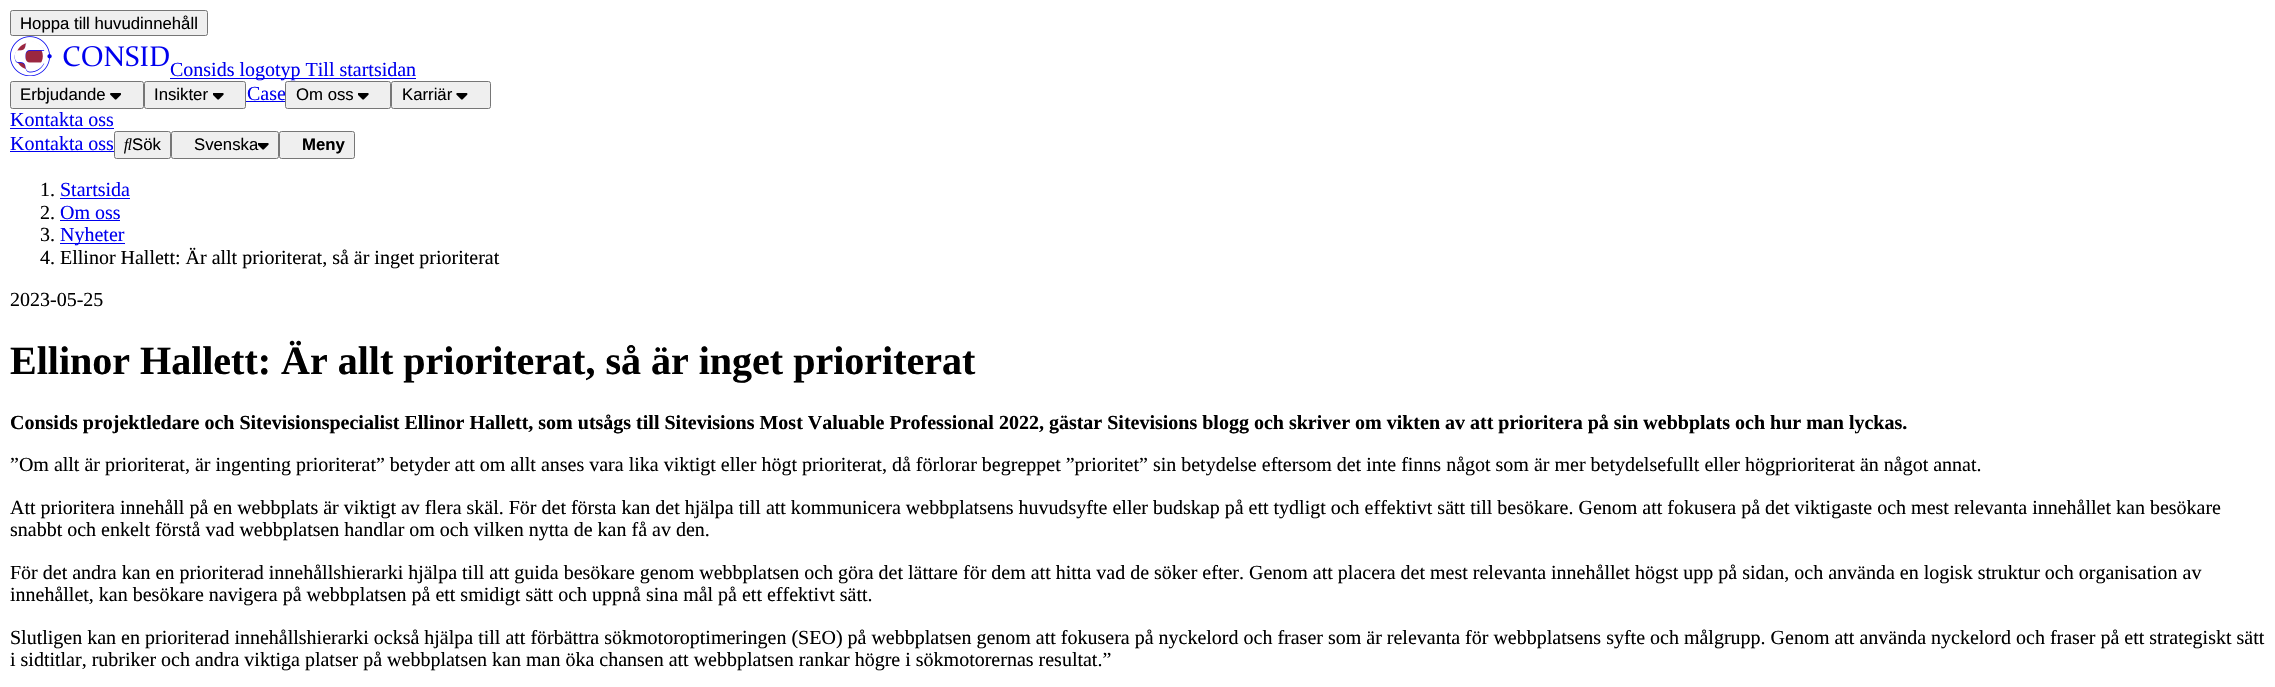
#include "include/core/SkBlurTypes.h"
#include "include/core/SkCanvas.h"
#include "include/core/SkData.h"
#include "include/core/SkFont.h"
#include "include/core/SkFontMgr.h"
#include "include/core/SkImage.h"
#include "include/core/SkMaskFilter.h"
#include "include/core/SkPaint.h"
#include "include/core/SkPathBuilder.h"
#include "include/core/SkTextBlob.h"
#include "include/effects/SkDashPathEffect.h"
#include "include/effects/SkGradientShader.h"
#include "include/utils/SkParsePath.h"

extern sk_sp<SkFontMgr> fontMgr;

static SkFont font(const char* family, int weight, float size, bool italic = false) {
    SkFontStyle style(weight, SkFontStyle::kNormal_Width,
        italic ? SkFontStyle::kItalic_Slant : SkFontStyle::kUpright_Slant);
    SkFont result(fontMgr->matchFamilyStyle(family, style), size);
    result.setSubpixel(true);
    return result;
}

static void drawLabel(SkCanvas* canvas, const char* s, float x, float y, const SkFont& font, SkColor color) {
    SkPaint ink(SkColor4f::FromColor(color));
    ink.setAntiAlias(true);
    canvas->drawString(s, x, y, font, ink);
}

static void fillRect(SkCanvas* canvas, float x, float y, float w, float h, SkColor color) {
    SkPaint ink(SkColor4f::FromColor(color));
    ink.setAntiAlias(true);
    canvas->drawRect(SkRect::MakeXYWH(x, y, w, h), ink);
}

static void drawPhoto(SkCanvas* canvas, const char* path, float x, float y, float w, float h) {
    auto image = SkImages::DeferredFromEncodedData(SkData::MakeFromFileName(path));
    canvas->drawImageRect(image, SkRect::MakeXYWH(x, y, w, h), SkSamplingOptions());
}

void draw(SkCanvas* canvas) {
    SkPaint paint;
    paint.setAntiAlias(true);
    canvas->clear(0xFFFFFFFF);
    paint.setColor(0xFFEFEFEF);
    canvas->drawRoundRect(SkRect::MakeXYWH(10.5f, 10.5f, 197, 25), 2, 2, paint);
    paint.setStroke(true);
    paint.setStrokeWidth(1);
    paint.setColor(0xFF767676);
    canvas->drawRoundRect(SkRect::MakeXYWH(10.5f, 10.5f, 197, 25), 2, 2, paint);
    SkFont font1 = font("Liberation Sans", 400, 16.75f);
    drawLabel(canvas, "Hoppa till huvudinnehåll", 20, 29, font1, 0xFF000000);
    drawPhoto(canvas, "assets/img1.png", 10, 36, 159, 40);
    fillRect(canvas, 170, 78, 246, 1, 0xFF0000EE);
    SkFont font2 = font("Liberation Serif", 400, 20);
    drawLabel(canvas, "Consids logotyp Till startsidan", 170, 76, font2, 0xFF0000EE);
    paint.setStroke(false);
    paint.setColor(0xFFEFEFEF);
    canvas->drawRoundRect(SkRect::MakeXYWH(10.5f, 81.5f, 133, 27), 2, 2, paint);
    paint.setStroke(true);
    paint.setColor(0xFF767676);
    canvas->drawRoundRect(SkRect::MakeXYWH(10.5f, 81.5f, 133, 27), 2, 2, paint);
    drawLabel(canvas, "Erbjudande", 20, 100, font1, 0xFF000000);
    drawPhoto(canvas, "assets/img2.png", 110, 93, 11, 7);
    paint.setStroke(false);
    paint.setColor(0xFFEFEFEF);
    canvas->drawRoundRect(SkRect::MakeXYWH(144.5f, 81.5f, 101, 27), 2, 2, paint);
    paint.setStroke(true);
    paint.setColor(0xFF767676);
    canvas->drawRoundRect(SkRect::MakeXYWH(144.5f, 81.5f, 101, 27), 2, 2, paint);
    drawLabel(canvas, "Insikter", 154, 100, font1, 0xFF000000);
    drawPhoto(canvas, "assets/img3.png", 213, 93, 11, 7);
    drawLabel(canvas, "Case", 247, 100, font2, 0xFF0000EE);
    fillRect(canvas, 246, 101, 39, 1, 0xFF0000EE);
    paint.setStroke(false);
    paint.setColor(0xFFEFEFEF);
    canvas->drawRoundRect(SkRect::MakeXYWH(285.5f, 81.5f, 105, 27), 2, 2, paint);
    paint.setStroke(true);
    paint.setColor(0xFF767676);
    canvas->drawRoundRect(SkRect::MakeXYWH(285.5f, 81.5f, 105, 27), 2, 2, paint);
    drawLabel(canvas, "Om oss", 296, 100, font1, 0xFF000000);
    drawPhoto(canvas, "assets/img3.png", 358, 93, 11, 7);
    paint.setStroke(false);
    paint.setColor(0xFFEFEFEF);
    canvas->drawRoundRect(SkRect::MakeXYWH(391.5f, 81.5f, 99, 27), 2, 2, paint);
    paint.setStroke(true);
    paint.setColor(0xFF767676);
    canvas->drawRoundRect(SkRect::MakeXYWH(391.5f, 81.5f, 99, 27), 2, 2, paint);
    drawLabel(canvas, "Karriär", 402, 100, font1, 0xFF000000);
    drawPhoto(canvas, "assets/img4.png", 456, 93, 12, 7);
    drawLabel(canvas, "Kontakta oss", 10, 126, font2, 0xFF0000EE);
    fillRect(canvas, 10, 128, 104, 1, 0xFF0000EE);
    drawLabel(canvas, "Kontakta oss", 10, 150, font2, 0xFF0000EE);
    fillRect(canvas, 10, 151, 104, 1, 0xFF0000EE);
    paint.setStroke(false);
    paint.setColor(0xFFEFEFEF);
    canvas->drawRoundRect(SkRect::MakeXYWH(114.5f, 131.5f, 56, 27), 2, 2, paint);
    paint.setStroke(true);
    paint.setColor(0xFF767676);
    canvas->drawRoundRect(SkRect::MakeXYWH(114.5f, 131.5f, 56, 27), 2, 2, paint);
    drawPhoto(canvas, "assets/img5.png", 124, 138, 8, 16);
    drawLabel(canvas, "Sök", 132, 150, font1, 0xFF000000);
    paint.setStroke(false);
    paint.setColor(0xFFEFEFEF);
    canvas->drawRoundRect(SkRect::MakeXYWH(171.5f, 131.5f, 107, 27), 2, 2, paint);
    paint.setStroke(true);
    paint.setColor(0xFF767676);
    canvas->drawRoundRect(SkRect::MakeXYWH(171.5f, 131.5f, 107, 27), 2, 2, paint);
    drawLabel(canvas, "Svenska", 194, 150, font1, 0xFF000000);
    drawPhoto(canvas, "assets/img3.png", 258, 143, 11, 7);
    paint.setStroke(false);
    paint.setColor(0xFFEFEFEF);
    canvas->drawRoundRect(SkRect::MakeXYWH(279.5f, 131.5f, 75, 27), 2, 2, paint);
    paint.setStroke(true);
    paint.setColor(0xFF767676);
    canvas->drawRoundRect(SkRect::MakeXYWH(279.5f, 131.5f, 75, 27), 2, 2, paint);
    SkFont font3 = font("Liberation Sans", 700, 16.75f);
    drawLabel(canvas, "Meny", 302, 150, font3, 0xFF000000);
    drawLabel(canvas, "1.", 40, 196, font2, 0xFF000000);
    drawLabel(canvas, "Startsida", 60, 196, font2, 0xFF0000EE);
    fillRect(canvas, 60, 198, 70, 1, 0xFF0000EE);
    drawLabel(canvas, "2.", 40, 219, font2, 0xFF000000);
    drawLabel(canvas, "Om oss", 60, 219, font2, 0xFF0000EE);
    fillRect(canvas, 60, 220, 60, 1, 0xFF0000EE);
    drawLabel(canvas, "3.", 40, 241, font2, 0xFF000000);
    fillRect(canvas, 60, 243, 65, 1, 0xFF0000EE);
    drawLabel(canvas, "Nyheter", 60, 241, font2, 0xFF0000EE);
    drawLabel(canvas, "4. Ellinor Hallett: Är allt prioriterat, så är inget prioriterat", 40, 264, font2, 0xFF000000);
    drawLabel(canvas, "2023-05-25", 10, 306, font2, 0xFF000000);
    SkFont font4 = font("Liberation Serif", 700, 40);
    drawLabel(canvas, "Ellinor Hallett: Är allt prioriterat, så är inget prioriterat", 10, 374, font4, 0xFF000000);
    SkFont font5 = font("Liberation Serif", 700, 20);
    drawLabel(canvas, "Consids projektledare och Sitevisionspecialist Ellinor Hallett, som utsågs till Sitevisions Most Valuable Professional 2022, gästar Sitevisions blogg och skriver om vikten av att prioritera på sin webbplats och hur man lyckas.", 10, 429, font5, 0xFF000000);
    drawLabel(canvas, "”Om allt är prioriterat, är ingenting prioriterat” betyder att om allt anses vara lika viktigt eller högt prioriterat, då förlorar begreppet ”prioritet” sin betydelse eftersom det inte finns något som är mer betydelsefullt eller högprioriterat än något annat.", 10, 471, font2, 0xFF000000);
    drawLabel(canvas, "Att prioritera innehåll på en webbplats är viktigt av flera skäl. För det första kan det hjälpa till att kommunicera webbplatsens huvudsyfte eller budskap på ett tydligt och effektivt sätt till besökare. Genom att fokusera på det viktigaste och mest relevanta innehållet kan besökare", 10, 514, font2, 0xFF000000);
    drawLabel(canvas, "snabbt och enkelt förstå vad webbplatsen handlar om och vilken nytta de kan få av den.", 10, 536, font2, 0xFF000000);
    drawLabel(canvas, "För det andra kan en prioriterad innehållshierarki hjälpa till att guida besökare genom webbplatsen och göra det lättare för dem att hitta vad de söker efter. Genom att placera det mest relevanta innehållet högst upp på sidan, och använda en logisk struktur och organisation av", 10, 579, font2, 0xFF000000);
    drawLabel(canvas, "innehållet, kan besökare navigera på webbplatsen på ett smidigt sätt och uppnå sina mål på ett effektivt sätt.", 10, 601, font2, 0xFF000000);
    drawLabel(canvas, "Slutligen kan en prioriterad innehållshierarki också hjälpa till att förbättra sökmotoroptimeringen (SEO) på webbplatsen genom att fokusera på nyckelord och fraser som är relevanta för webbplatsens syfte och målgrupp. Genom att använda nyckelord och fraser på ett strategiskt sätt", 10, 644, font2, 0xFF000000);
    drawLabel(canvas, "i sidtitlar, rubriker och andra viktiga platser på webbplatsen kan man öka chansen att webbplatsen rankar högre i sökmotorernas resultat.”", 10, 666, font2, 0xFF000000);
}
